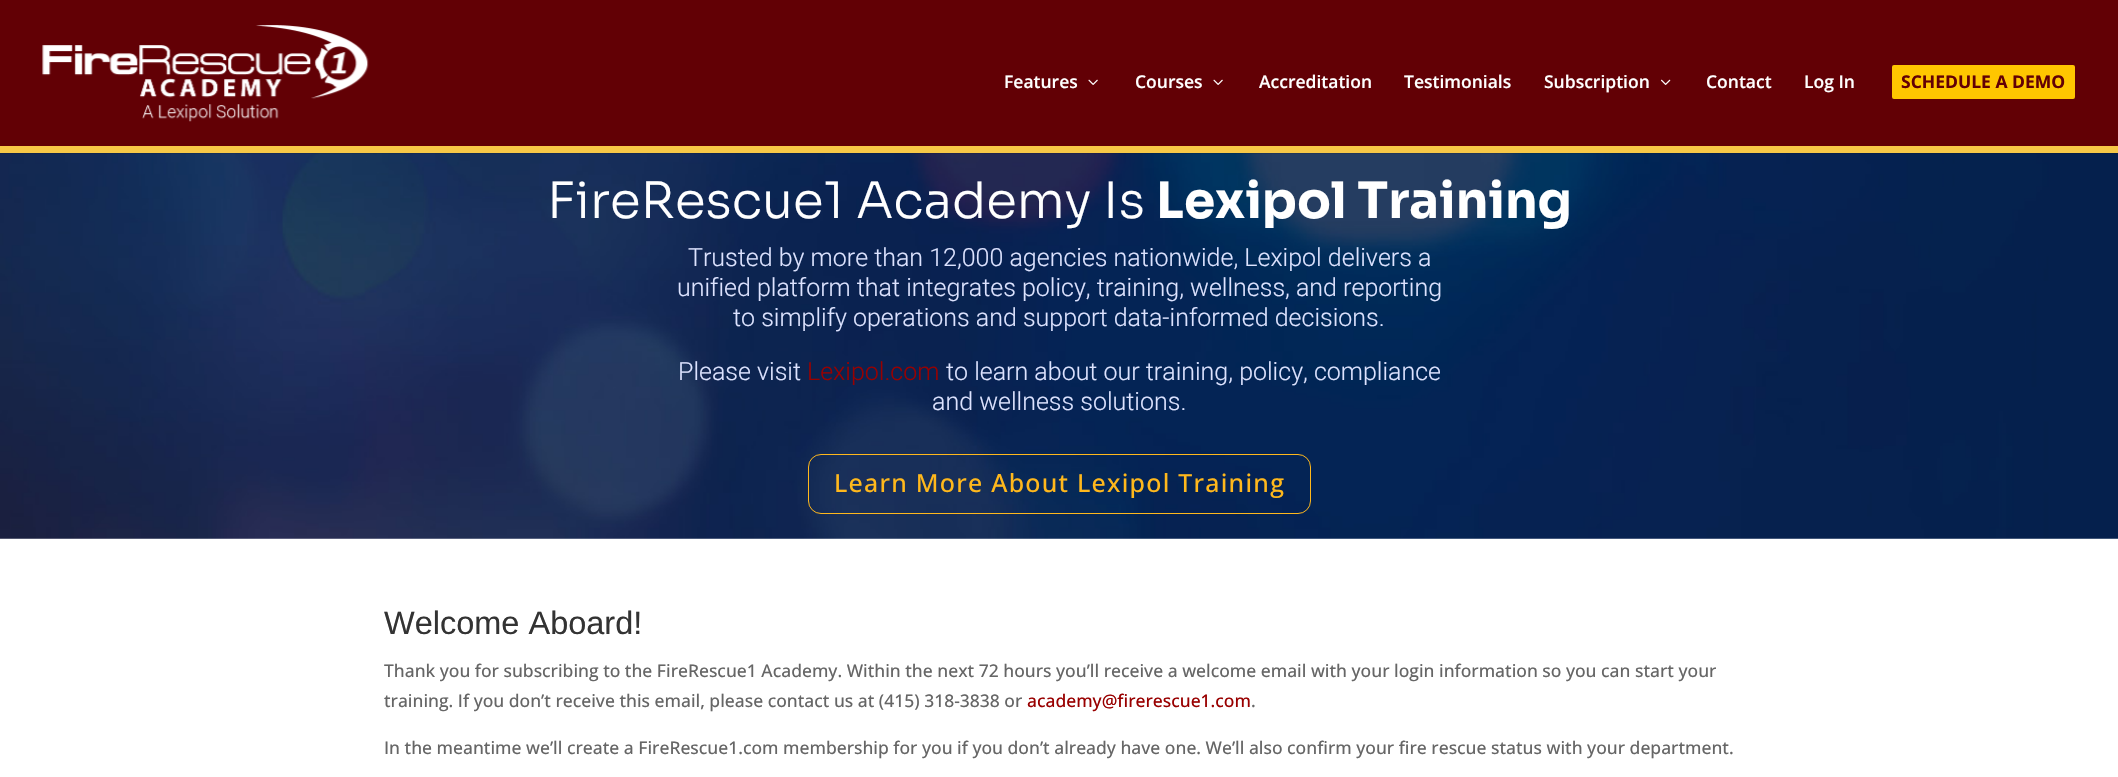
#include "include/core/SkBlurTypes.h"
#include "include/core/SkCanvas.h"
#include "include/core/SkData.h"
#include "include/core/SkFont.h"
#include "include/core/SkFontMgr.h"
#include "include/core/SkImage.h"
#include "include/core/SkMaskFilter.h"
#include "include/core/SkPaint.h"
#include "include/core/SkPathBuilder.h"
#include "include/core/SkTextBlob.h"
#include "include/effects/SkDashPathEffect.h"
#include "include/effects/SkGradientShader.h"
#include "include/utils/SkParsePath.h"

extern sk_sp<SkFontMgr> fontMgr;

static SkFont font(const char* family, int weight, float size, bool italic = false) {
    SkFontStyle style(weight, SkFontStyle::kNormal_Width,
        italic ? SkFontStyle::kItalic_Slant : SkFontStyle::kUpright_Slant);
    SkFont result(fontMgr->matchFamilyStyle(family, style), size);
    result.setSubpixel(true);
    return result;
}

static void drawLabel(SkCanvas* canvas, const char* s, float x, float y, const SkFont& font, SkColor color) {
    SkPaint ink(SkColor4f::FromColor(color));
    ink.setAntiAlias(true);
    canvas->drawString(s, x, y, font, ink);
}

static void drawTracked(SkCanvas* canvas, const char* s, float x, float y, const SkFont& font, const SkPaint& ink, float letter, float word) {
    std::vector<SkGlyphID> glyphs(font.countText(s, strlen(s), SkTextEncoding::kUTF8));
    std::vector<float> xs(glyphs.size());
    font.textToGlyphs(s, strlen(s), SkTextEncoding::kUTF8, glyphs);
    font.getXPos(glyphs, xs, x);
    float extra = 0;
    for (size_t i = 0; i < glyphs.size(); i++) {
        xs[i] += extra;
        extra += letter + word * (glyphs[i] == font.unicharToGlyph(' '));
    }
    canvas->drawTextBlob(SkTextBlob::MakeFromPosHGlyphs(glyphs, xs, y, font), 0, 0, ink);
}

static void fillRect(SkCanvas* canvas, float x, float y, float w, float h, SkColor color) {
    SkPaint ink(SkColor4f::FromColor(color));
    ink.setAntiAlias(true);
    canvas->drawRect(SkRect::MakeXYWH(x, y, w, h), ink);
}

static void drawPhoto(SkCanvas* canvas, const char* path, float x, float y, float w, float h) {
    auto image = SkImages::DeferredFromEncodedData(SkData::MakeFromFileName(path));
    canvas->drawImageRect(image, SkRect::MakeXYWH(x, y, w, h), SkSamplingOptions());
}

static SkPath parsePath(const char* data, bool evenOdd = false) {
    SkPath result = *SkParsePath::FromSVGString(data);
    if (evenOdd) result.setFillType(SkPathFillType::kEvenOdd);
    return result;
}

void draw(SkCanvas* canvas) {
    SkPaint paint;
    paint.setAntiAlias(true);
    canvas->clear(0xFFFFFFFF);
    drawPhoto(canvas, "assets/img4.png", 0, 153, 2118, 386);
    paint.setColor(0x1A000000);
    canvas->drawPath(parsePath("M0 152V154H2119V1V152Z"), paint);
    fillRect(canvas, 0, 0, 2118, 146, 0xFF620005);
    fillRect(canvas, 0, 146, 2118, 7, 0xFFF7C847);
    drawPhoto(canvas, "assets/img1.png", 42, 25, 327, 97);
    SkFont font1 = font("Open Sans", 600, 17.5f);
    drawLabel(canvas, "Features", 1004, 88, font1, 0xFFFFFFFF);
    drawPhoto(canvas, "assets/img2.png", 1088, 79, 10, 6);
    drawLabel(canvas, "Courses", 1135, 88, font1, 0xFFFFFFFF);
    drawPhoto(canvas, "assets/img2.png", 1213, 79, 10, 6);
    drawLabel(canvas, "Accreditation", 1259, 88, font1, 0xFFFFFFFF);
    drawLabel(canvas, "Testimonials", 1404, 88, font1, 0xFFFFFFFF);
    drawLabel(canvas, "Subscription", 1544, 88, font1, 0xFFFFFFFF);
    drawPhoto(canvas, "assets/img3.png", 1661, 79, 10, 6);
    drawLabel(canvas, "Contact", 1706, 88, font1, 0xFFFFFFFF);
    drawLabel(canvas, "Log In", 1804, 88, font1, 0xFFFFFFFF);
    paint.setColor(0xFFFFC600);
    canvas->drawRoundRect(SkRect::MakeXYWH(1890, 63, 187, 38), 4, 4, paint);
    paint.setStroke(true);
    paint.setStrokeWidth(4);
    paint.setColor(0xFF620005);
    canvas->drawRoundRect(SkRect::MakeXYWH(1890, 63, 187, 38), 4, 4, paint);
    SkFont font2 = font("Open Sans", 700, 17.5f);
    drawLabel(canvas, "SCHEDULE A DEMO", 1901, 88, font2, 0xFF620005);
    SkFont font3 = font("Sora", 300, 50);
    drawLabel(canvas, "FireRescue1 Academy Is", 547, 218, font3, 0xFFFFFFFF);
    SkFont font4 = font("Sora", 700, 50);
    drawLabel(canvas, "Lexipol Training", 1156, 218, font4, 0xFFFFFFFF);
    SkFont font5 = font("Roboto", 300, 25);
    drawLabel(canvas, "Trusted by more than 12,000 agencies nationwide, Lexipol delivers a", 688, 266, font5, 0xFFDDE3FF);
    drawLabel(canvas, "unified platform that integrates policy, training, wellness, and reporting", 677, 296, font5, 0xFFDDE3FF);
    drawLabel(canvas, "to simplify operations and support data-informed decisions.", 733, 326, font5, 0xFFDDE3FF);
    drawLabel(canvas, "Please visit", 678, 380, font5, 0xFFDDE3FF);
    drawLabel(canvas, "Lexipol.com", 807, 380, font5, 0xFF990000);
    drawLabel(canvas, "to learn about our training, policy, compliance", 946, 380, font5, 0xFFDDE3FF);
    drawLabel(canvas, "and wellness solutions.", 932, 410, font5, 0xFFDDE3FF);
    paint.setStrokeWidth(1);
    paint.setColor(0xFFFFB81C);
    canvas->drawRoundRect(SkRect::MakeXYWH(808.5f, 454.5f, 502, 59), 12.5f, 12.5f, paint);
    SkFont font6 = font("Open Sans", 500, 25);
    paint.setStroke(false);
    drawTracked(canvas, "Learn More About Lexipol Training", 834, 492, font6, paint, 1.25f, 0);
    SkFont font7 = font("Liberation Sans", 400, 32.5f);
    drawLabel(canvas, "Welcome Aboard!", 384, 634, font7, 0xFF333333);
    SkFont font8 = font("Open Sans", 500, 17.5f);
    drawLabel(canvas, "Thank you for subscribing to the FireRescue1 Academy. Within the next 72 hours you’ll receive a welcome email with your login information so you can start your", 384, 677, font8, 0xFF666666);
    drawLabel(canvas, "training. If you don’t receive this email, please contact us at (415) 318-3838 or", 384, 707, font8, 0xFF666666);
    drawLabel(canvas, "academy@firerescue1.com", 1027, 707, font8, 0xFF990000);
    drawLabel(canvas, ".", 1251, 707, font8, 0xFF666666);
    drawLabel(canvas, "In the meantime we’ll create a FireRescue1.com membership for you if you don’t already have one. We’ll also confirm your fire rescue status with your department.", 384, 754, font8, 0xFF666666);
}
